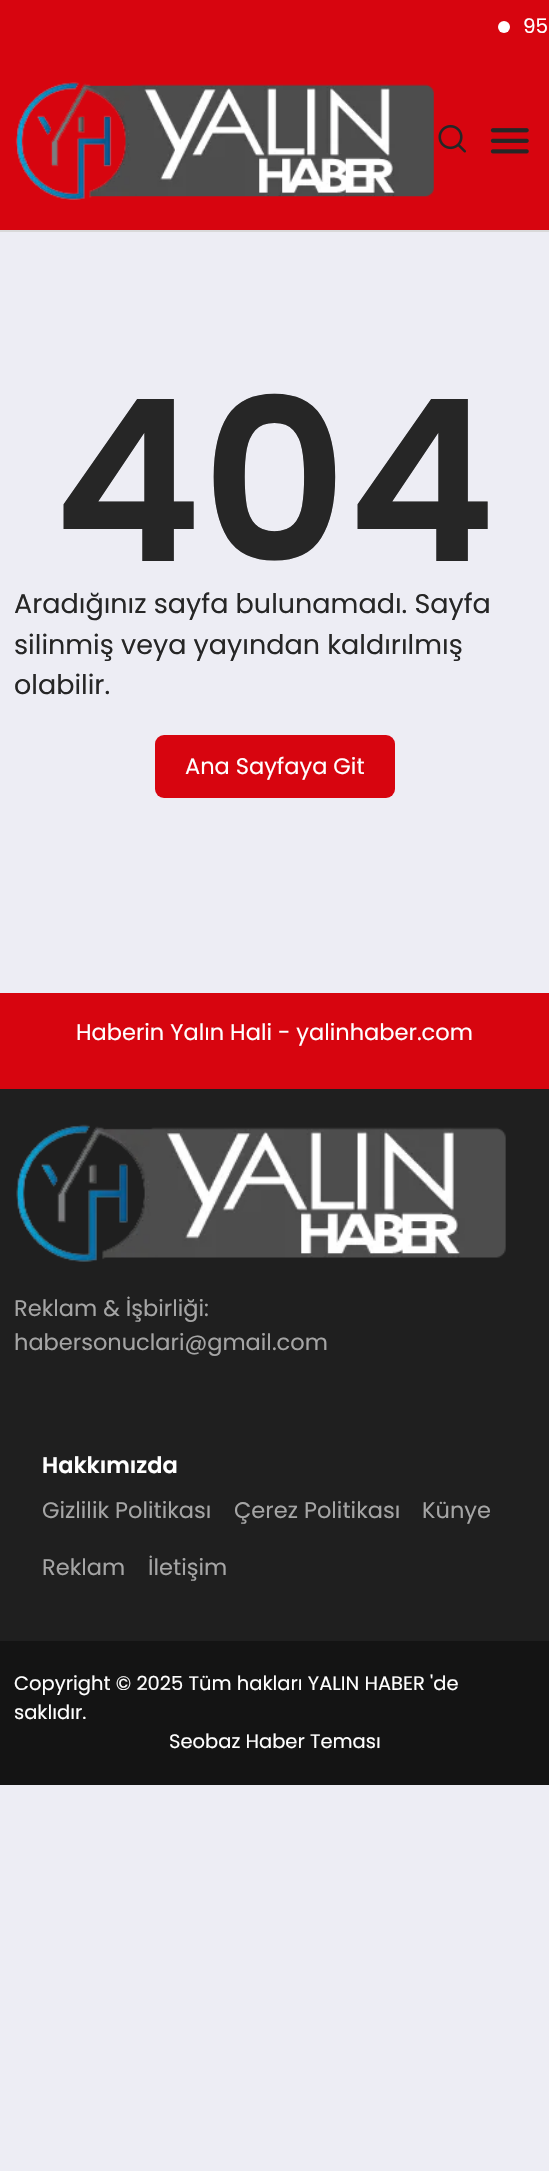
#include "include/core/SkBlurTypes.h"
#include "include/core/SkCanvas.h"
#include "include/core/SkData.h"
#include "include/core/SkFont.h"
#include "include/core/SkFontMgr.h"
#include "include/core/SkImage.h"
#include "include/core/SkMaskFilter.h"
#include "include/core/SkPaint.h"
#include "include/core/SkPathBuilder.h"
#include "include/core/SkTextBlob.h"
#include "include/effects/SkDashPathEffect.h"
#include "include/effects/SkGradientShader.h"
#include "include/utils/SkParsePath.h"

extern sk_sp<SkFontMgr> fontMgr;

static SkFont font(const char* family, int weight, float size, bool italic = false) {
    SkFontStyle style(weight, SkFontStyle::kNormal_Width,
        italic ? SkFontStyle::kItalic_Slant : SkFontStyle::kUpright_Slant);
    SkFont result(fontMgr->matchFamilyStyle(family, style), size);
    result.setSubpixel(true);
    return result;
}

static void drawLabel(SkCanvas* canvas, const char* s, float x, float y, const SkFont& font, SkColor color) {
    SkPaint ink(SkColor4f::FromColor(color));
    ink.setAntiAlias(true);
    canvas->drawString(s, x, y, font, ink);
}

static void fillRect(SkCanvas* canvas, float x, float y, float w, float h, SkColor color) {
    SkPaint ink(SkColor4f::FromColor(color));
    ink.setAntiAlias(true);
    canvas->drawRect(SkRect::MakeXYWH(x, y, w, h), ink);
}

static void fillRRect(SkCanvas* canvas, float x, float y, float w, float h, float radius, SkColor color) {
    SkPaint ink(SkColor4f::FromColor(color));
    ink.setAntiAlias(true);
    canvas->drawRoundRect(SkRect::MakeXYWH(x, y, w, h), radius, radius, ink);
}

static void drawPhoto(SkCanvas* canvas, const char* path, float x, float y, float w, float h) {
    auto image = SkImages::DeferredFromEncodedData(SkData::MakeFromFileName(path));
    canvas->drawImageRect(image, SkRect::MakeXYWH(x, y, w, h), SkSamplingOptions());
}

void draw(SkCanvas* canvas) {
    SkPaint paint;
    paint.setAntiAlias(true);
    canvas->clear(0xFFEDEDF4);
    fillRect(canvas, 0, 0, 549, 230, 0xFFD7050F);
    paint.setColor(0xFFFFFFFF);
    canvas->drawCircle(504, 27, 6, paint);
    SkFont font1 = font("Poppins", 400, 20);
    drawLabel(canvas, "95", 523, 33, font1, 0xFFFFFFFF);
    drawPhoto(canvas, "assets/img1.png", 15, 82, 419, 118);
    drawPhoto(canvas, "assets/img2.png", 438, 124, 29, 29);
    drawPhoto(canvas, "assets/img3.png", 490, 128, 39, 26);
    fillRect(canvas, 0, 230, 549, 2, 0xFFD9D9D9);
    SkFont font2 = font("Poppins", 600, 225);
    drawLabel(canvas, "404", 53, 561, font2, 0xFF262626);
    SkFont font3 = font("Poppins", 400, 27);
    drawLabel(canvas, "Aradığınız sayfa bulunamadı. Sayfa", 14, 613, font3, 0xFF262626);
    drawLabel(canvas, "silinmiş veya yayından kaldırılmış", 14, 654, font3, 0xFF262626);
    drawLabel(canvas, "olabilir.", 14, 694, font3, 0xFF262626);
    fillRRect(canvas, 155, 735, 240, 63, 9, 0xFFD7050F);
    SkFont font4 = font("Poppins", 400, 22.5f);
    drawLabel(canvas, "Ana Sayfaya Git", 185, 774, font4, 0xFFFFFFFF);
    fillRect(canvas, 0, 993, 549, 96, 0xFFD7050F);
    drawLabel(canvas, "Haberin Yalın Hali - yalinhaber.com", 76, 1040, font4, 0xFFFFFFFF);
    fillRect(canvas, 0, 1089, 549, 552, 0xFF1F1F1F);
    drawPhoto(canvas, "assets/img4.png", 16, 1124, 490, 138);
    drawLabel(canvas, "Reklam & İşbirliği:", 14, 1316, font4, 0xFFA5A5A5);
    drawLabel(canvas, "habersonuclari@gmail.com", 14, 1350, font4, 0xFFA5A5A5);
    SkFont font5 = font("Poppins", 600, 22.5f);
    drawLabel(canvas, "Hakkımızda", 42, 1473, font5, 0xFFFFFFFF);
    drawLabel(canvas, "Gizlilik Politikası", 42, 1518, font4, 0xFFA5A5A5);
    drawLabel(canvas, "Çerez Politikası", 234, 1518, font4, 0xFFA5A5A5);
    drawLabel(canvas, "Künye", 422, 1518, font4, 0xFFA5A5A5);
    drawLabel(canvas, "Reklam", 42, 1575, font4, 0xFFA5A5A5);
    drawLabel(canvas, "İletişim", 148, 1575, font4, 0xFFA5A5A5);
    fillRect(canvas, 0, 1641, 549, 144, 0xFF141414);
    SkFont font6 = font("Poppins", 400, 19.5f);
    drawLabel(canvas, "Copyright © 2025 Tüm hakları YALIN HABER 'de", 14, 1690, font6, 0xFFFFFFFF);
    drawLabel(canvas, "saklıdır.", 14, 1719, font6, 0xFFFFFFFF);
    drawLabel(canvas, "Seobaz Haber Teması", 169, 1748, font6, 0xFFFFFFFF);
}
